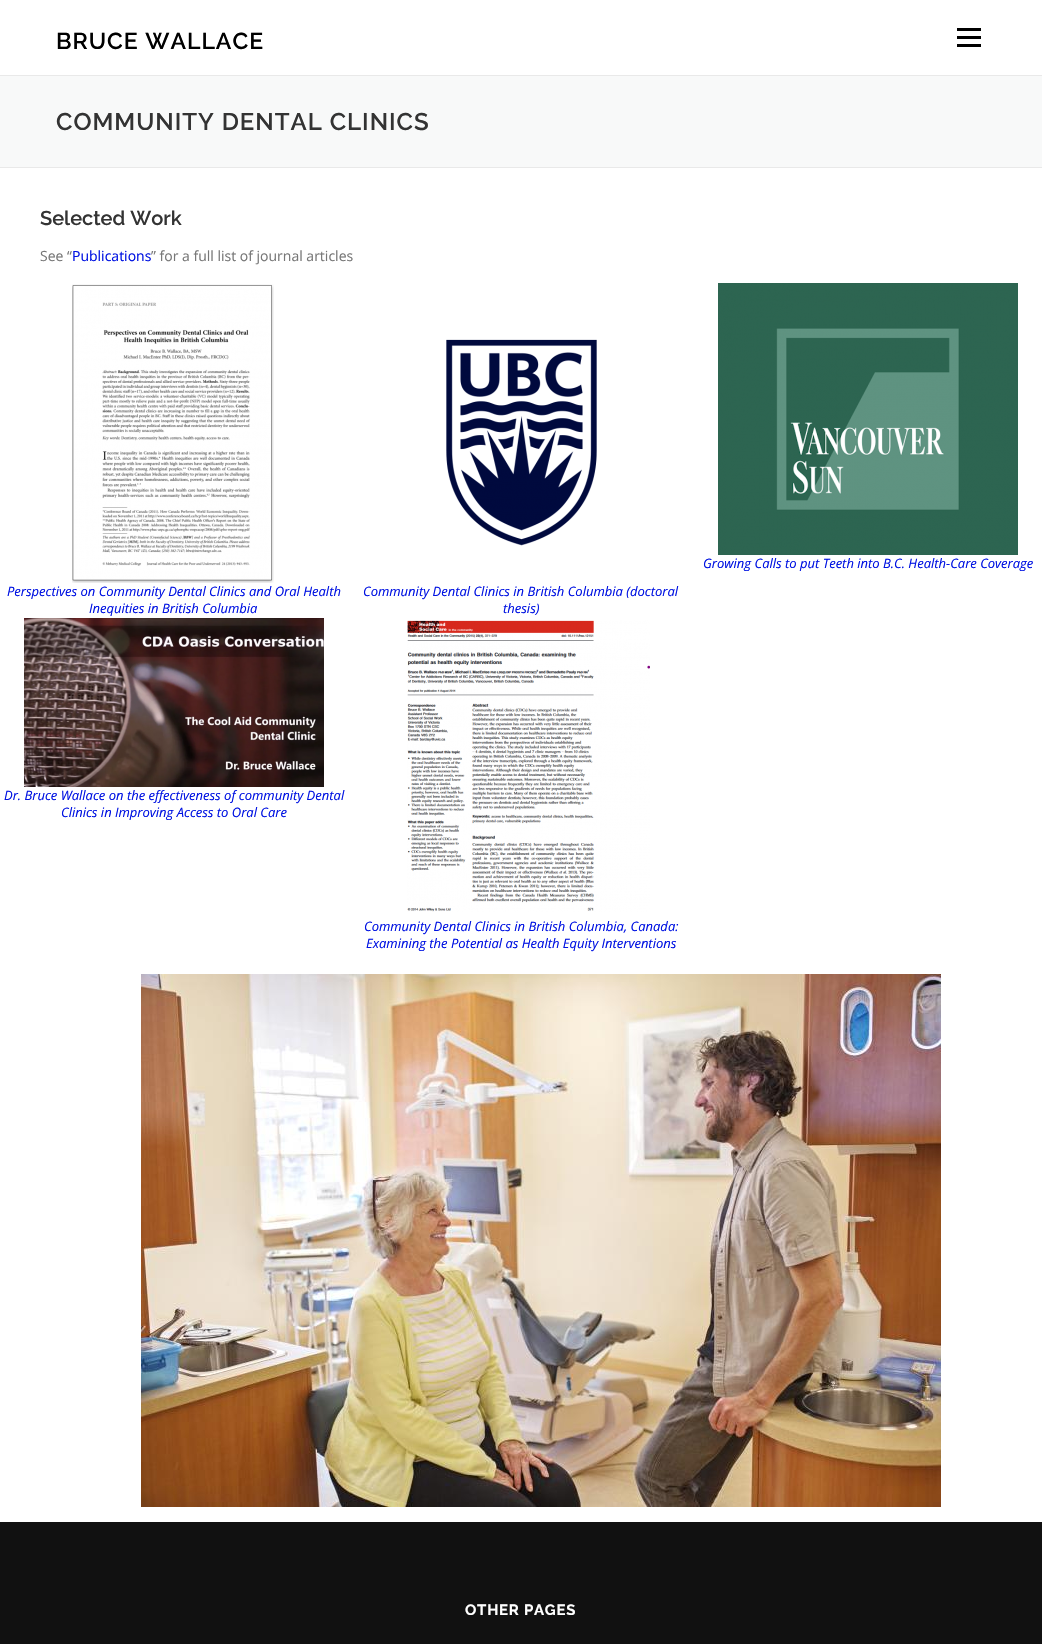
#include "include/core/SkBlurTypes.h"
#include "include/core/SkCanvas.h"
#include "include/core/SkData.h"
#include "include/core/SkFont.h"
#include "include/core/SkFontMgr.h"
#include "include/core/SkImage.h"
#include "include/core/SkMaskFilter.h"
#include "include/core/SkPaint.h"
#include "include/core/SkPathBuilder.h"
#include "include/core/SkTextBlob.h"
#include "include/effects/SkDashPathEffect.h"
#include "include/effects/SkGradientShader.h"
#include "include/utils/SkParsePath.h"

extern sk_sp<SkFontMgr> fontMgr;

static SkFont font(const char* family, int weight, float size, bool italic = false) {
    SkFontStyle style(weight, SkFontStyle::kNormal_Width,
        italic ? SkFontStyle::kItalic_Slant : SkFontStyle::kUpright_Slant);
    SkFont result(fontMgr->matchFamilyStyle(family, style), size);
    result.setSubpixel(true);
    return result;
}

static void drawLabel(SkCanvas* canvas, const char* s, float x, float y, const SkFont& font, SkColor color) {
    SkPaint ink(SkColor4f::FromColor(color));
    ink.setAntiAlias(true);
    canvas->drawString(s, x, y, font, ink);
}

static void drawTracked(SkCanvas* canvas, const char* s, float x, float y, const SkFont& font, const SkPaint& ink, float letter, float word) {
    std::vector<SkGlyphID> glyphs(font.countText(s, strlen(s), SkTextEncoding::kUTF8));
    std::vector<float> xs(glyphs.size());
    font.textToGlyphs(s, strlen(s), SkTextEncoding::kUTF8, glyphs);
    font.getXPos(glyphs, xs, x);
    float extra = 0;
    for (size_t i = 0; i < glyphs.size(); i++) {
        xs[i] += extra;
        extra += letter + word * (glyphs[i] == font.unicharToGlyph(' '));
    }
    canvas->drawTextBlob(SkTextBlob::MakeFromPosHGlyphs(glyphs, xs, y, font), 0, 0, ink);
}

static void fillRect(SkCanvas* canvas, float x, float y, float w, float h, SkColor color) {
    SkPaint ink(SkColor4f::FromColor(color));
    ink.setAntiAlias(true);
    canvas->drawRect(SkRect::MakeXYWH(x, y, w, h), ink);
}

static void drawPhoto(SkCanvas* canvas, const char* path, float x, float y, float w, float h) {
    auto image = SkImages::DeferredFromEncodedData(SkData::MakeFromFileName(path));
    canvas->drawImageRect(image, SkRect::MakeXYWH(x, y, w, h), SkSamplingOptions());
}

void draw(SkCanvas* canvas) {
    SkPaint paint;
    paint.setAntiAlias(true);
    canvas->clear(0xFFFFFFFF);
    SkFont font1 = font("Raleway", 600, 23);
    paint.setColor(0xFF000000);
    drawTracked(canvas, "BRUCE WALLACE", 56, 49, font1, paint, 1, 0);
    fillRect(canvas, 957, 36, 24, 3, 0xFF000000);
    fillRect(canvas, 957, 28, 24, 3, 0xFF000000);
    fillRect(canvas, 957, 44, 24, 3, 0xFF000000);
    fillRect(canvas, 0, 76, 1042, 91, 0xFFF8F9F9);
    fillRect(canvas, 0, 75, 1042, 1, 0xFFE9E9E9);
    fillRect(canvas, 0, 167, 1042, 1, 0xFFE9E9E9);
    SkFont font2 = font("Raleway", 600, 24);
    paint.setColor(0xFF333333);
    drawTracked(canvas, "COMMUNITY DENTAL CLINICS", 56, 130, font2, paint, 1, 0);
    SkFont font3 = font("Raleway", 600, 20);
    drawLabel(canvas, "Selected Work", 40, 225, font3, 0xFF333333);
    SkFont font4 = font("Open Sans", 400, 14);
    drawLabel(canvas, "See “", 40, 261, font4, 0xFF777777);
    drawLabel(canvas, "Publications", 72, 261, font4, 0xFF0012E2);
    drawLabel(canvas, "” for a full list of journal articles", 151, 261, font4, 0xFF777777);
    drawPhoto(canvas, "assets/img1.png", 718, 283, 300, 272);
    SkFont font5 = font("Open Sans", 400, 13, true);
    drawLabel(canvas, "Growing Calls to put Teeth into B.C. Health-Care Coverage", 703, 568, font5, 0xFF0012E2);
    drawPhoto(canvas, "assets/img2.png", 72, 284, 202, 299);
    drawLabel(canvas, "Perspectives on Community Dental Clinics and Oral Health", 7, 596, font5, 0xFF0012E2);
    drawLabel(canvas, "Inequities in British Columbia", 89, 613, font5, 0xFF0012E2);
    drawPhoto(canvas, "assets/img3.png", 446, 339, 151, 207);
    drawLabel(canvas, "Community Dental Clinics in British Columbia (doctoral", 363, 596, font5, 0xFF0012E2);
    drawLabel(canvas, "thesis)", 503, 613, font5, 0xFF0012E2);
    drawPhoto(canvas, "assets/img4.png", 24, 618, 300, 169);
    drawLabel(canvas, "Dr. Bruce Wallace on the effectiveness of community Dental", 4, 800, font5, 0xFF0012E2);
    drawLabel(canvas, "Clinics in Improving Access to Oral Care", 61, 817, font5, 0xFF0012E2);
    drawPhoto(canvas, "assets/img5.png", 407, 620, 243, 292);
    drawLabel(canvas, "Community Dental Clinics in British Columbia, Canada:", 364, 931, font5, 0xFF0012E2);
    drawLabel(canvas, "Examining the Potential as Health Equity Interventions", 366, 948, font5, 0xFF0012E2);
    drawPhoto(canvas, "assets/img6.png", 141, 974, 800, 533);
    fillRect(canvas, 0, 1522, 1042, 122, 0xFF111111);
    SkFont font6 = font("Raleway", 700, 15);
    paint.setColor(0xFFFFFFFF);
    drawTracked(canvas, "OTHER PAGES", 465, 1615, font6, paint, 0.75f, 0);
}
